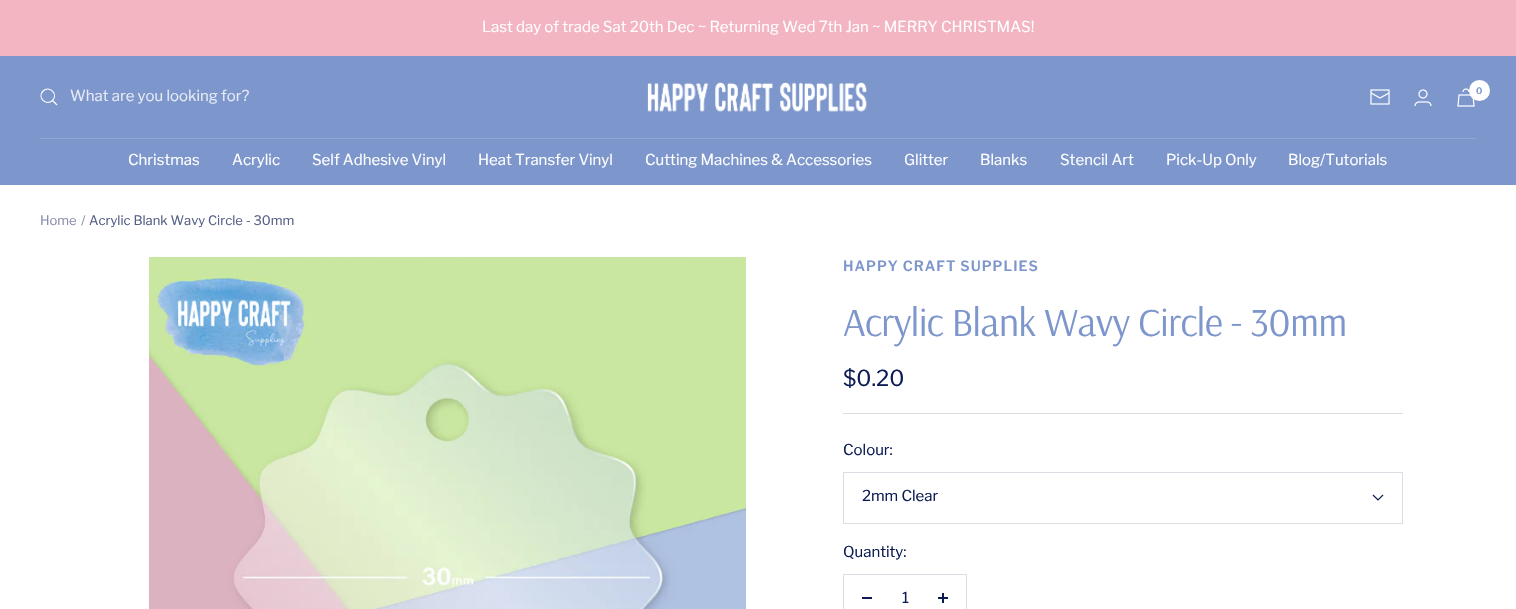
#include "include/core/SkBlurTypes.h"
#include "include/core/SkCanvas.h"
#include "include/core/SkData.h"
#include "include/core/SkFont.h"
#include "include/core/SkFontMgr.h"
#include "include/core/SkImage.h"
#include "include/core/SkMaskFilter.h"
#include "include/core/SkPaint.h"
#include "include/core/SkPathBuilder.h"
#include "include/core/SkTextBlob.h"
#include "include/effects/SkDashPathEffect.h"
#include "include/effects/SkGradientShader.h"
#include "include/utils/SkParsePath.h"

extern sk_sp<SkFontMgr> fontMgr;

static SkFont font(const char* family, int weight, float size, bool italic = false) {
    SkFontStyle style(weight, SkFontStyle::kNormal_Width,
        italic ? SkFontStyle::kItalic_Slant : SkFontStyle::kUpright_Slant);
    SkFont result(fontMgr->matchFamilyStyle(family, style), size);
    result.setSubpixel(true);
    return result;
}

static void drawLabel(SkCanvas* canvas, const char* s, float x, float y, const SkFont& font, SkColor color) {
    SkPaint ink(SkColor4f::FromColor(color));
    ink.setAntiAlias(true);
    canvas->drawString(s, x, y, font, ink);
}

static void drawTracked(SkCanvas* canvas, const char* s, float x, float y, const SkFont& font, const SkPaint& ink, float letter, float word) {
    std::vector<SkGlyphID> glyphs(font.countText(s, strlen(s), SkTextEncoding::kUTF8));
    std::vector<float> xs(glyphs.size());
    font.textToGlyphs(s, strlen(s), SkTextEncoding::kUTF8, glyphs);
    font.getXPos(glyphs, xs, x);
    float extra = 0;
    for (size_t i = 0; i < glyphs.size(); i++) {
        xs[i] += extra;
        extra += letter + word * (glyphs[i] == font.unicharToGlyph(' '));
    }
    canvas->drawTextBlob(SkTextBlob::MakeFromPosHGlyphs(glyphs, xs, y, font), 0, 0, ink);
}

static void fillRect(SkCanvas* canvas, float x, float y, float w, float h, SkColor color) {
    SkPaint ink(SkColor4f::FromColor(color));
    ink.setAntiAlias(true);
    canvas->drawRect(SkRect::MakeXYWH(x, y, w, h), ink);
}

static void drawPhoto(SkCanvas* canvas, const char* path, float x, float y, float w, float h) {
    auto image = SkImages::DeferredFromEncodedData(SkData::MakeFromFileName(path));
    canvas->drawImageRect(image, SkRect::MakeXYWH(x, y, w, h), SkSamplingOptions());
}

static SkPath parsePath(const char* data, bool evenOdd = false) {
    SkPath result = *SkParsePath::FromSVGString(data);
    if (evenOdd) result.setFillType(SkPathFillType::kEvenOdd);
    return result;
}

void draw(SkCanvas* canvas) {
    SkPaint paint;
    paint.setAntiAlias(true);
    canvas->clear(0xFFFFFFFF);
    fillRect(canvas, 0, 0, 1516, 56, 0xFFF2B5C1);
    SkFont font1 = font("Libre Franklin", 400, 15);
    drawLabel(canvas, "Last day of trade Sat 20th Dec ~ Returning Wed 7th Jan ~ MERRY CHRISTMAS!", 482, 32, font1, 0xFFFFFFFF);
    fillRect(canvas, 0, 56, 1516, 129, 0xFF7D96CC);
    paint.setStroke(true);
    paint.setStrokeWidth(1.2f);
    paint.setColor(0xFFFFFFFF);
    canvas->drawPath(parsePath("M52.5 100.5C58.5 94 49.5 85 43 91C37 97.5 46 106.5 52.5 100.5ZM52.5 100.5L57 105"), paint);
    drawLabel(canvas, "What are you looking for?", 70, 101, font1, 0xFFE5EAF5);
    drawPhoto(canvas, "assets/img1.png", 647, 82, 220, 30);
    drawPhoto(canvas, "assets/img2.png", 1370, 89, 20, 16);
    drawPhoto(canvas, "assets/img3.png", 1414, 89, 18, 17);
    drawPhoto(canvas, "assets/img4.png", 1457, 88, 18, 19);
    paint.setStroke(false);
    canvas->drawCircle(1479.5f, 90.5f, 10.5f, paint);
    SkFont font2 = font("Libre Franklin", 600, 9);
    drawLabel(canvas, "0", 1476, 94, font2, 0xFF7D96CC);
    fillRect(canvas, 40, 138, 1436, 1, 0xFF91A6D4);
    drawLabel(canvas, "Christmas", 128, 165, font1, 0xFFFFFFFF);
    drawLabel(canvas, "Acrylic", 232, 165, font1, 0xFFFFFFFF);
    drawLabel(canvas, "Self Adhesive Vinyl", 312, 165, font1, 0xFFFFFFFF);
    drawLabel(canvas, "Heat Transfer Vinyl", 478, 165, font1, 0xFFFFFFFF);
    drawLabel(canvas, "Cutting Machines & Accessories", 645, 165, font1, 0xFFFFFFFF);
    drawLabel(canvas, "Glitter", 904, 165, font1, 0xFFFFFFFF);
    drawLabel(canvas, "Blanks", 980, 165, font1, 0xFFFFFFFF);
    drawLabel(canvas, "Stencil Art", 1060, 165, font1, 0xFFFFFFFF);
    drawLabel(canvas, "Pick-Up Only", 1166, 165, font1, 0xFFFFFFFF);
    drawLabel(canvas, "Blog/Tutorials", 1288, 165, font1, 0xFFFFFFFF);
    SkFont font3 = font("Libre Franklin", 400, 13);
    drawLabel(canvas, "Home", 40, 225, font3, 0xFF888FAB);
    drawLabel(canvas, "/", 81, 225, font3, 0xFF888FAB);
    drawLabel(canvas, "Acrylic Blank Wavy Circle - 30mm", 89, 225, font3, 0xFF555F87);
    drawPhoto(canvas, "assets/img5.png", 149, 257, 597, 352);
    fillRect(canvas, 843, 413, 560, 1, 0xFFDBDDE5);
    SkFont font4 = font("Libre Franklin", 600, 14);
    paint.setColor(0xFF7D96CC);
    drawTracked(canvas, "HAPPY CRAFT SUPPLIES", 843, 271, font4, paint, 1, 0);
    SkFont font5 = font("Arsenal", 400, 40);
    drawTracked(canvas, "Acrylic Blank Wavy Circle - 30mm", 843, 336, font5, paint, -0.8f, 0);
    SkFont font6 = font("Libre Franklin", 400, 22);
    drawLabel(canvas, "$0.20", 843, 386, font6, 0xFF0C1B54);
    drawLabel(canvas, "Colour:", 843, 455, font1, 0xFF0C1B54);
    paint.setStroke(true);
    paint.setStrokeWidth(1);
    paint.setColor(0xFFDBDDE5);
    canvas->drawRect(SkRect::MakeXYWH(843.5f, 472.5f, 559, 51), paint);
    drawLabel(canvas, "2mm Clear", 862, 501, font1, 0xFF0C1B54);
    paint.setStrokeWidth(1.2f);
    paint.setColor(0xFF0C1B54);
    canvas->drawPath(parsePath("M1373 495L1378 500L1383 495"), paint);
    drawLabel(canvas, "Quantity:", 843, 557, font1, 0xFF0C1B54);
    paint.setStrokeWidth(1);
    paint.setColor(0xFFDBDDE5);
    canvas->drawRect(SkRect::MakeXYWH(843.5f, 574.5f, 123, 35), paint);
    fillRect(canvas, 862, 597, 10, 2, 0xFF0C1B54);
    drawLabel(canvas, "1", 902, 603, font1, 0xFF0C1B54);
    drawPhoto(canvas, "assets/img6.png", 938, 593, 10, 10);
}
